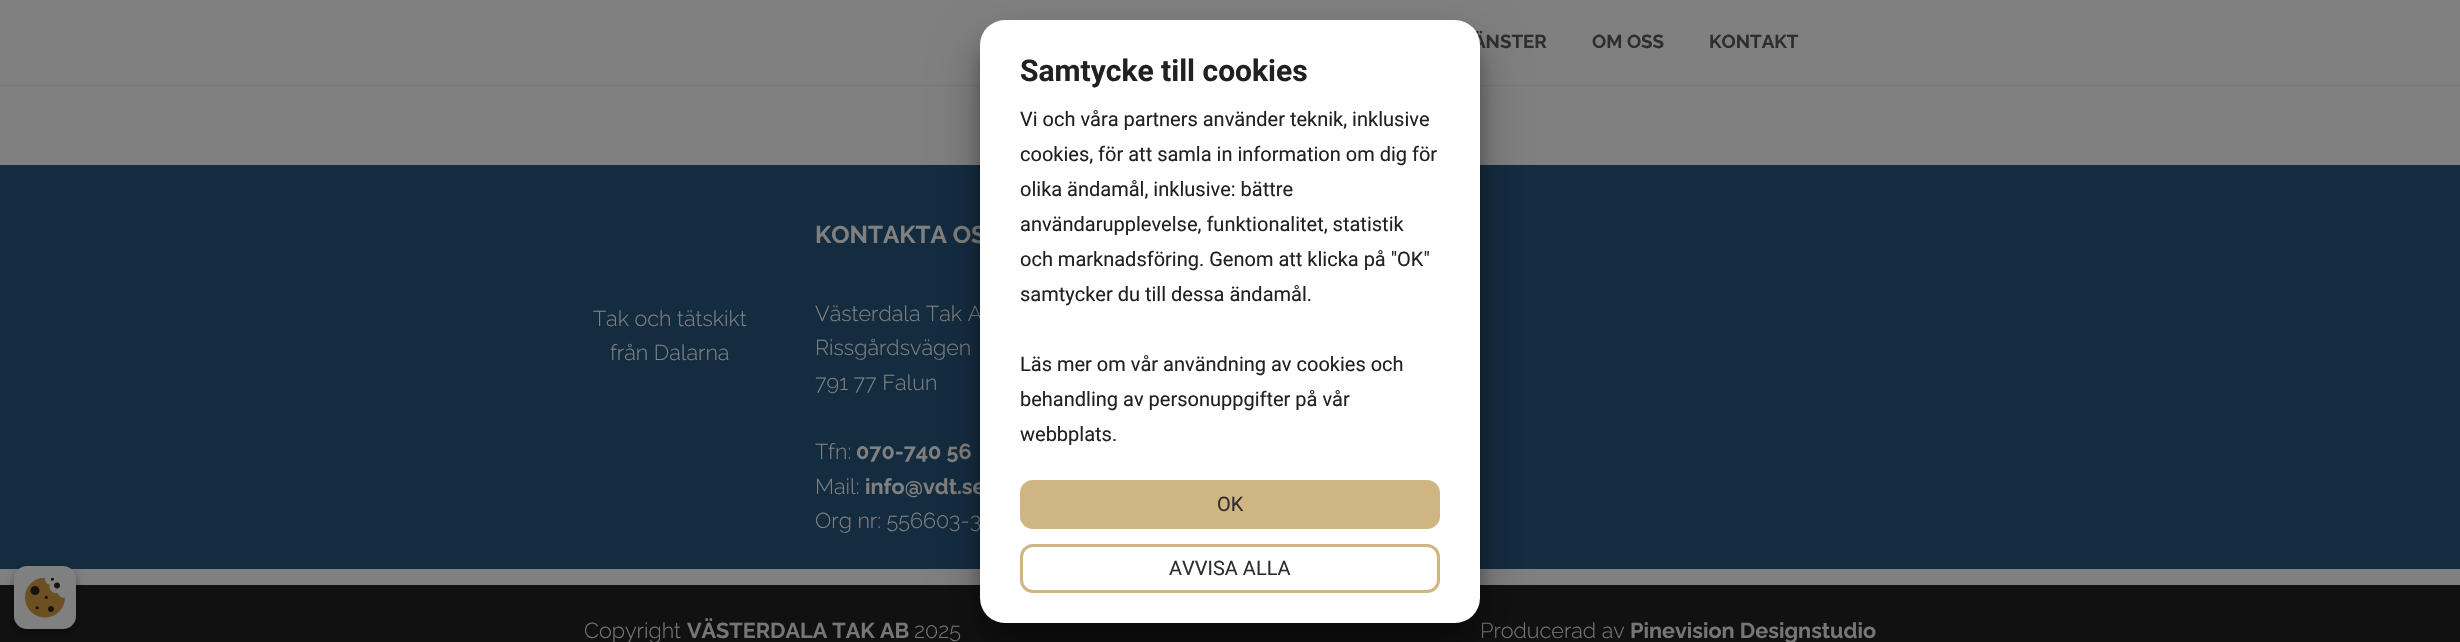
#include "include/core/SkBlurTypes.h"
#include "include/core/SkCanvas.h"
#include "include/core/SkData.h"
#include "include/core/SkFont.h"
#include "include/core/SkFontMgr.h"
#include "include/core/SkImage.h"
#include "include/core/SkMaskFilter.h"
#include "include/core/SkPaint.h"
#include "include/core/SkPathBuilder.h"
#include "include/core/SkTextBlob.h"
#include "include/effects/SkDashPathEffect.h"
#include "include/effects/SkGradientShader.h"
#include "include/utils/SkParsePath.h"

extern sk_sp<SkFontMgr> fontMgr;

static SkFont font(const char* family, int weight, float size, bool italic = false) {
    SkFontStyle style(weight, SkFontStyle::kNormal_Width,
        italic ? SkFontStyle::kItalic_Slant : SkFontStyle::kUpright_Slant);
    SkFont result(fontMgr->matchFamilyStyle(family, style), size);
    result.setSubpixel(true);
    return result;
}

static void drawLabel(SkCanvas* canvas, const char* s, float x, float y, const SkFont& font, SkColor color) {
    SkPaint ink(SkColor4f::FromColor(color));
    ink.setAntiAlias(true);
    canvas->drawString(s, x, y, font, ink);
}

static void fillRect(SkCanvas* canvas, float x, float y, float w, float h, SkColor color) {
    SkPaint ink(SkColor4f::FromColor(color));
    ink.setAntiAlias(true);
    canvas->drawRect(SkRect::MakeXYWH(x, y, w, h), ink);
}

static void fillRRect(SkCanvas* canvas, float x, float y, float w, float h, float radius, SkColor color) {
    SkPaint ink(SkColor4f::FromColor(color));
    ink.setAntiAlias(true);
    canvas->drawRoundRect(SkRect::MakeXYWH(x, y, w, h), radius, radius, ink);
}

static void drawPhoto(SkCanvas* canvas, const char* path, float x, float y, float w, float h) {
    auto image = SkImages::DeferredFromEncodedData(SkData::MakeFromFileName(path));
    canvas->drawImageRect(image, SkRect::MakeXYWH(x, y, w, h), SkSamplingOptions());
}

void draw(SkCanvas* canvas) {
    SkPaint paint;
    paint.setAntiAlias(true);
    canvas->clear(0xFF808080);
    fillRect(canvas, 0, 85, 2460, 1, 0xFF787878);
    SkFont font1 = font("Raleway", 700, 18.75f);
    drawLabel(canvas, "ÄNSTER", 1473, 48, font1, 0xFF2E2E2E);
    drawLabel(canvas, "OM OSS", 1592, 48, font1, 0xFF2E2E2E);
    drawLabel(canvas, "KONTAKT", 1709, 48, font1, 0xFF2E2E2E);
    fillRect(canvas, 0, 165, 2460, 404, 0xFF142C40);
    SkFont font2 = font("Raleway", 300, 21.6f);
    drawLabel(canvas, "Tak och tätskikt", 593, 326, font2, 0xFF808080);
    drawLabel(canvas, "från Dalarna", 610, 360, font2, 0xFF808080);
    SkFont font3 = font("Raleway", 700, 24.25f);
    drawLabel(canvas, "KONTAKTA OS", 815, 243, font3, 0xFF808080);
    drawLabel(canvas, "Västerdala Tak A", 815, 321, font2, 0xFF808080);
    drawLabel(canvas, "Rissgårdsvägen", 815, 355, font2, 0xFF808080);
    drawLabel(canvas, "791 77 Falun", 815, 390, font2, 0xFF808080);
    drawLabel(canvas, "Tfn:", 815, 459, font2, 0xFF808080);
    SkFont font4 = font("Raleway", 700, 21.6f);
    drawLabel(canvas, "070-740 56", 856, 459, font4, 0xFF808080);
    drawLabel(canvas, "Mail:", 815, 494, font2, 0xFF808080);
    drawLabel(canvas, "info@vdt.se", 865, 494, font4, 0xFF808080);
    drawLabel(canvas, "Org nr: 556603-3", 815, 528, font2, 0xFF808080);
    fillRect(canvas, 0, 585, 2460, 57, 0xFF111111);
    drawLabel(canvas, "Copyright", 584, 638, font2, 0xFF767676);
    drawLabel(canvas, "VÄSTERDALA TAK AB", 687, 638, font4, 0xFF767676);
    drawLabel(canvas, "2025", 914, 638, font2, 0xFF767676);
    drawLabel(canvas, "Producerad av", 1480, 638, font2, 0xFF767676);
    drawLabel(canvas, "Pinevision Designstudio", 1630, 638, font4, 0xFF767676);
    paint.setColor(0x38000000);
    paint.setMaskFilter(SkMaskFilter::MakeBlur(kNormal_SkBlurStyle, 7.5f));
    canvas->drawRoundRect(SkRect::MakeXYWH(980, 39, 500, 602), 25, 25, paint);
    paint.setMaskFilter(nullptr);
    paint.setColor(0x4D000000);
    paint.setMaskFilter(SkMaskFilter::MakeBlur(kNormal_SkBlurStyle, 24));
    canvas->drawRoundRect(SkRect::MakeXYWH(980, 44, 500, 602), 25, 25, paint);
    paint.setMaskFilter(nullptr);
    fillRRect(canvas, 980, 20, 500, 603, 25, 0xFFFFFFFF);
    SkFont font5 = font("Roboto", 700, 30);
    drawLabel(canvas, "Samtycke till cookies", 1020, 81, font5, 0xFF212121);
    SkFont font6 = font("Roboto", 400, 20);
    drawLabel(canvas, "Vi och våra partners använder teknik, inklusive", 1020, 126, font6, 0xFF212121);
    drawLabel(canvas, "cookies, för att samla in information om dig för", 1020, 161, font6, 0xFF212121);
    drawLabel(canvas, "olika ändamål, inklusive: bättre", 1020, 196, font6, 0xFF212121);
    drawLabel(canvas, "användarupplevelse, funktionalitet, statistik", 1020, 231, font6, 0xFF212121);
    drawLabel(canvas, "och marknadsföring. Genom att klicka på \"OK\"", 1020, 266, font6, 0xFF212121);
    drawLabel(canvas, "samtycker du till dessa ändamål.", 1020, 301, font6, 0xFF212121);
    drawLabel(canvas, "Läs mer om vår användning av cookies och", 1020, 371, font6, 0xFF212121);
    drawLabel(canvas, "behandling av personuppgifter på vår", 1020, 406, font6, 0xFF212121);
    drawLabel(canvas, "webbplats.", 1020, 441, font6, 0xFF212121);
    paint.setColor(0xFFCEB582);
    canvas->drawRoundRect(SkRect::MakeXYWH(1021.5f, 481.5f, 417, 46), 11.5f, 11.5f, paint);
    paint.setStroke(true);
    paint.setStrokeWidth(3);
    canvas->drawRoundRect(SkRect::MakeXYWH(1021.5f, 481.5f, 417, 46), 11.5f, 11.5f, paint);
    drawLabel(canvas, "OK", 1217, 511, font6, 0xFF2E2E2E);
    canvas->drawRoundRect(SkRect::MakeXYWH(1021.5f, 545.5f, 417, 46), 11.5f, 11.5f, paint);
    drawLabel(canvas, "AVVISA ALLA", 1169, 575, font6, 0xFF2E2E2E);
    paint.setStroke(false);
    paint.setColor(0x3B000000);
    paint.setMaskFilter(SkMaskFilter::MakeBlur(kNormal_SkBlurStyle, 4));
    canvas->drawRoundRect(SkRect::MakeXYWH(14, 570, 62, 63), 13, 13, paint);
    paint.setMaskFilter(nullptr);
    paint.setColor(0x29000000);
    paint.setMaskFilter(SkMaskFilter::MakeBlur(kNormal_SkBlurStyle, 4));
    canvas->drawRoundRect(SkRect::MakeXYWH(14, 570, 62, 63), 13, 13, paint);
    paint.setMaskFilter(nullptr);
    fillRRect(canvas, 14, 566, 62, 63, 13, 0xFF808080);
    drawPhoto(canvas, "assets/img1.png", 25, 578, 40, 40);
}
